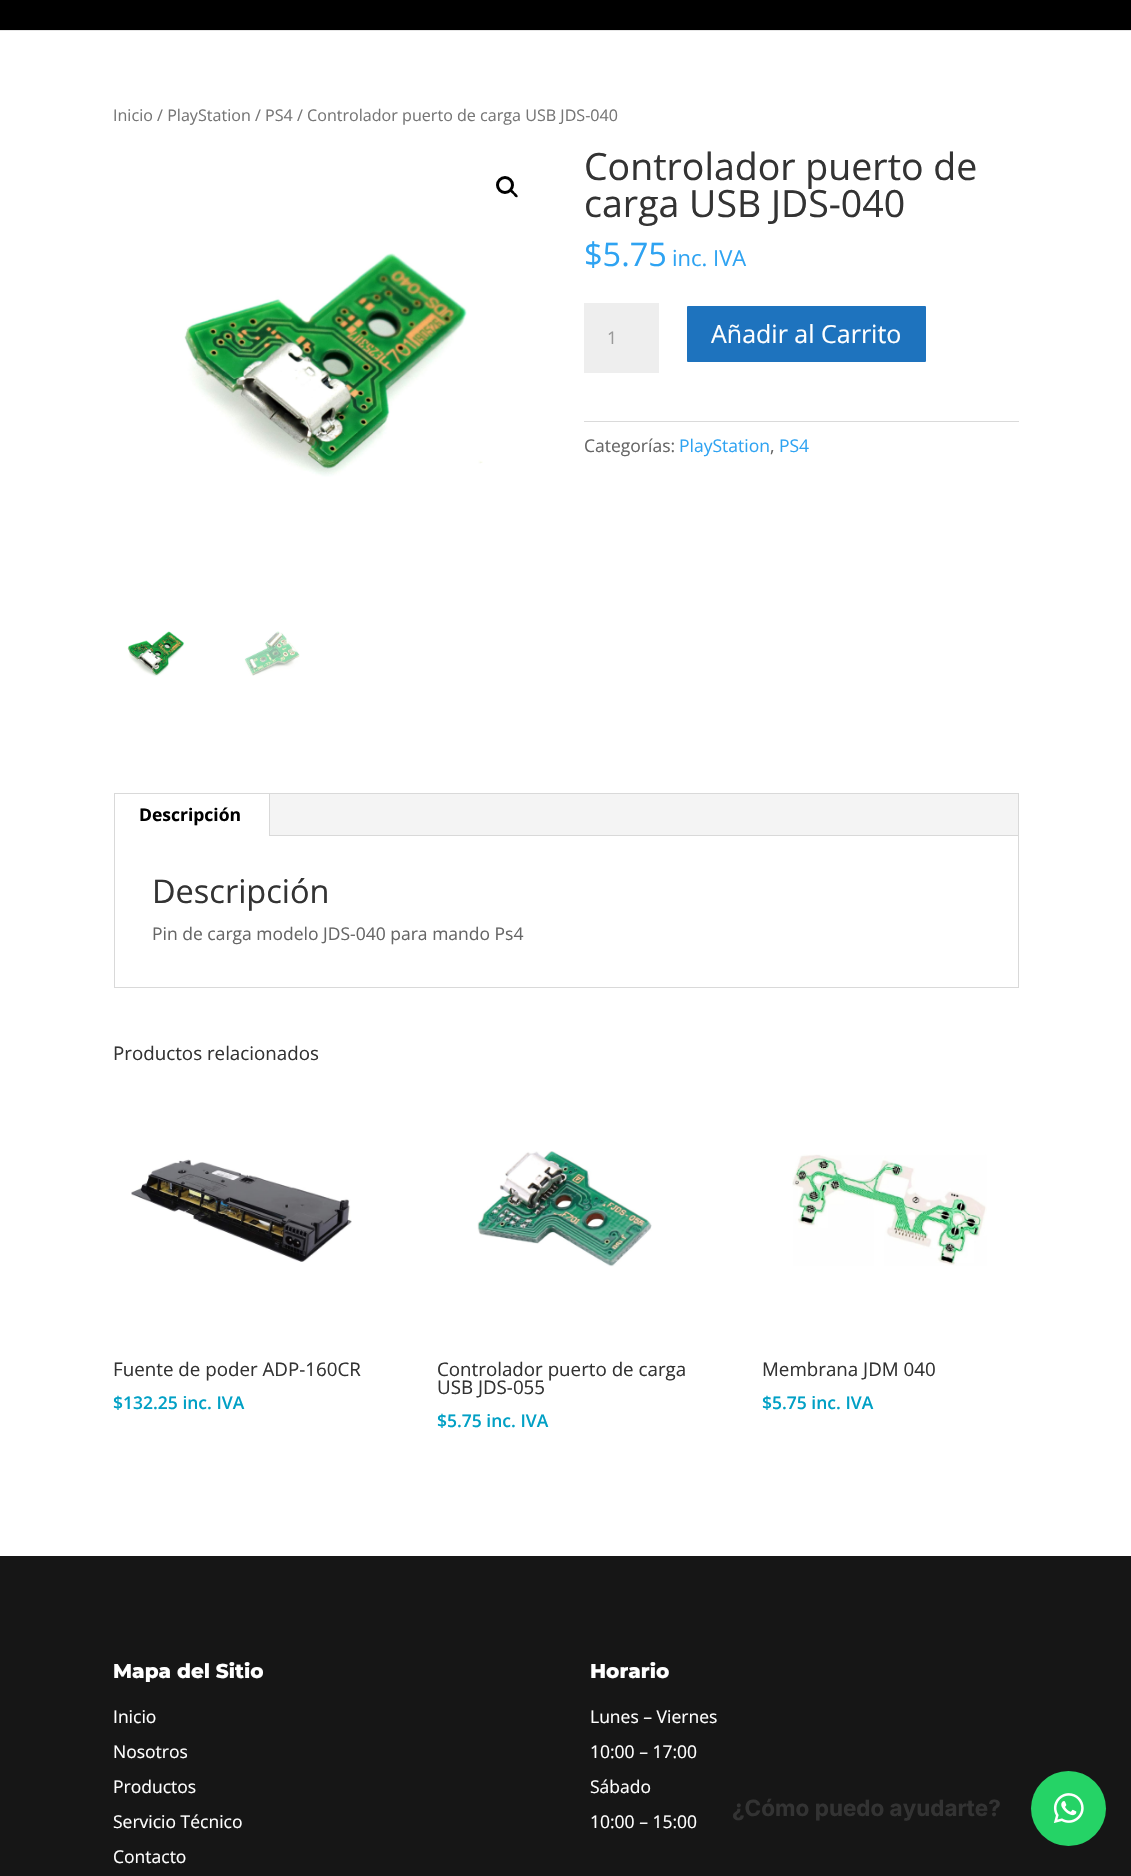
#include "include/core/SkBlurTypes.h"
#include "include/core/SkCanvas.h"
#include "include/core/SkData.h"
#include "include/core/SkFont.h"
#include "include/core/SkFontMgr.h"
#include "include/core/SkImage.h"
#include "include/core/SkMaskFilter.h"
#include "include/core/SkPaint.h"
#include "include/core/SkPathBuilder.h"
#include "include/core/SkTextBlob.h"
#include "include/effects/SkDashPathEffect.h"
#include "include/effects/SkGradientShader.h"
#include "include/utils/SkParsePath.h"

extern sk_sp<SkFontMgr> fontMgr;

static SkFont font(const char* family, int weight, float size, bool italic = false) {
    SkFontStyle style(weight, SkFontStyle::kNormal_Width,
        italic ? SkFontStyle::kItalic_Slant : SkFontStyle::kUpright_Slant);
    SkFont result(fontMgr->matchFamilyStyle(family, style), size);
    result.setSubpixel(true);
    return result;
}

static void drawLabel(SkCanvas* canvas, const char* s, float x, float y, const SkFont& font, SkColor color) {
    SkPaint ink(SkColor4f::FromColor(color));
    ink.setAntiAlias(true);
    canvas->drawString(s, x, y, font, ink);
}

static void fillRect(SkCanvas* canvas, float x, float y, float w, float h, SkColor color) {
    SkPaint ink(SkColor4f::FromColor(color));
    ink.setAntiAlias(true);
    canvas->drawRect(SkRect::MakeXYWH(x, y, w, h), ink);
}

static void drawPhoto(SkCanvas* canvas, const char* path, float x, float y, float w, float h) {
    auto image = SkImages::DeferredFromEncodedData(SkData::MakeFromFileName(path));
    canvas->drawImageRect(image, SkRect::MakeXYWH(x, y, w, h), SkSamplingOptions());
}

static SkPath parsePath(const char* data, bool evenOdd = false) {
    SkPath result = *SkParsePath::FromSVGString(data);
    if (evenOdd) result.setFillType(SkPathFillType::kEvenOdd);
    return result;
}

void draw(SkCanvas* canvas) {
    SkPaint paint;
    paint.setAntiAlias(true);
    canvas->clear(0xFFFFFFFF);
    fillRect(canvas, 0, 30, 1131, 1, 0xFFE6E6E6);
    fillRect(canvas, 0, 0, 1131, 30, 0xFF000000);
    SkFont font1 = font("Open Sans", 400, 16.1f);
    drawLabel(canvas, "Inicio / PlayStation / PS4 / Controlador puerto de carga USB JDS-040", 113, 121, font1, 0xFF767676);
    paint.setStroke(true);
    paint.setStrokeWidth(3);
    paint.setColor(0xFF000000);
    canvas->drawCircle(505, 185, 7.5f, paint);
    paint.setStroke(false);
    canvas->drawPath(parsePath("M510 190C511.5 188.5 514 191.5 514.5 192.5C515.5 193 518.5 195.5 517.5 197C516 198.5 513.5 195 513 194C512 193.5 509 191 510 190Z"), paint);
    drawPhoto(canvas, "assets/img1.png", 184, 253, 299, 224);
    drawPhoto(canvas, "assets/img2.png", 127, 631, 58, 46);
    drawPhoto(canvas, "assets/img3.png", 244, 631, 56, 45);
    SkFont font2 = font("Open Sans", 400, 37.5f);
    drawLabel(canvas, "Controlador puerto de", 584, 180, font2, 0xFF333333);
    drawLabel(canvas, "carga USB JDS-040", 584, 217, font2, 0xFF333333);
    SkFont font3 = font("Open Sans", 400, 32.5f);
    drawLabel(canvas, "$5.75", 584, 266, font3, 0xFF2EA3F2);
    SkFont font4 = font("Open Sans", 400, 22);
    drawLabel(canvas, "inc. IVA", 672, 266, font4, 0xFF2EA3F2);
    fillRect(canvas, 584, 303, 75, 70, 0xFFEEEEEE);
    SkFont font5 = font("Open Sans", 400, 17.5f);
    drawLabel(canvas, "1", 607, 344, font5, 0xFF999999);
    paint.setColor(0xFF1E73BE);
    canvas->drawRoundRect(SkRect::MakeXYWH(685.5f, 304.5f, 242, 59), 2.5f, 2.5f, paint);
    paint.setStroke(true);
    paint.setColor(0xFFFFFFFF);
    canvas->drawRoundRect(SkRect::MakeXYWH(685.5f, 304.5f, 242, 59), 2.5f, 2.5f, paint);
    SkFont font6 = font("Open Sans", 400, 25);
    drawLabel(canvas, "Añadir al Carrito", 711, 343, font6, 0xFFFFFFFF);
    fillRect(canvas, 584, 421, 435, 1, 0xFFDADADA);
    drawLabel(canvas, "Categorías:", 584, 452, font5, 0xFF666666);
    drawLabel(canvas, "PlayStation", 679, 452, font5, 0xFF2EA3F2);
    drawLabel(canvas, ",", 770, 452, font5, 0xFF666666);
    drawLabel(canvas, "PS4", 779, 452, font5, 0xFF2EA3F2);
    paint.setStrokeWidth(1);
    paint.setColor(0xFFD9D9D9);
    canvas->drawRect(SkRect::MakeXYWH(114.5f, 793.5f, 904, 194), paint);
    fillRect(canvas, 270, 794, 748, 41, 0xFFF4F4F4);
    fillRect(canvas, 269, 794, 1, 42, 0xFFD9D9D9);
    SkFont font7 = font("Open Sans", 700, 17.5f);
    drawLabel(canvas, "Descripción", 139, 821, font7, 0xFF000000);
    fillRect(canvas, 270, 835, 748, 1, 0xFFD9D9D9);
    drawLabel(canvas, "Descripción", 152, 903, font3, 0xFF333333);
    drawLabel(canvas, "Pin de carga modelo JDS-040 para mando Ps4", 152, 940, font5, 0xFF666666);
    SkFont font8 = font("Open Sans", 400, 18.75f);
    drawLabel(canvas, "Productos relacionados", 113, 1060, font8, 0xFF333333);
    drawPhoto(canvas, "assets/img4.png", 131, 1159, 221, 103);
    drawLabel(canvas, "Fuente de poder ADP-160CR", 113, 1376, font8, 0xFF333333);
    SkFont font9 = font("Open Sans", 600, 17.5f);
    drawLabel(canvas, "$132.25 inc. IVA", 113, 1409, font9, 0xFF01A0C5);
    drawPhoto(canvas, "assets/img5.png", 477, 1151, 175, 116);
    drawLabel(canvas, "Controlador puerto de carga", 437, 1376, font8, 0xFF333333);
    drawLabel(canvas, "USB JDS-055", 437, 1394, font8, 0xFF333333);
    drawLabel(canvas, "$5.75 inc. IVA", 437, 1427, font9, 0xFF01A0C5);
    drawPhoto(canvas, "assets/img6.png", 792, 1154, 195, 112);
    drawLabel(canvas, "Membrana JDM 040", 762, 1376, font8, 0xFF333333);
    drawLabel(canvas, "$5.75 inc. IVA", 762, 1409, font9, 0xFF01A0C5);
    fillRect(canvas, 0, 1556, 1131, 320, 0xFF161616);
    SkFont font10 = font("Montserrat", 800, 20);
    drawLabel(canvas, "Mapa del Sitio", 113, 1678, font10, 0xFFFFFFFF);
    drawLabel(canvas, "Inicio", 113, 1723, font5, 0xFFFFFFFF);
    drawLabel(canvas, "Nosotros", 113, 1758, font5, 0xFFFFFFFF);
    drawLabel(canvas, "Productos", 113, 1793, font5, 0xFFFFFFFF);
    drawLabel(canvas, "Servicio Técnico", 113, 1828, font5, 0xFFFFFFFF);
    drawLabel(canvas, "Contacto", 113, 1863, font5, 0xFFFFFFFF);
    drawLabel(canvas, "Horario", 590, 1678, font10, 0xFFFFFFFF);
    drawLabel(canvas, "Lunes – Viernes", 590, 1723, font5, 0xFFFFFFFF);
    drawLabel(canvas, "10:00 – 17:00", 590, 1758, font5, 0xFFFFFFFF);
    drawLabel(canvas, "Sábado", 590, 1793, font5, 0xFFFFFFFF);
    drawLabel(canvas, "10:00 – 15:00", 590, 1828, font5, 0xFFFFFFFF);
    paint.setStroke(false);
    paint.setColor(0xFF25D366);
    canvas->drawCircle(1068.5f, 1808.5f, 37.5f, paint);
    SkFont font11 = font("Inter", 700, 22.5f);
    drawLabel(canvas, "¿Cómo puedo ayudarte?", 732, 1816, font11, 0xFF333333);
    drawPhoto(canvas, "assets/img7.png", 1053, 1793, 31, 30);
}
